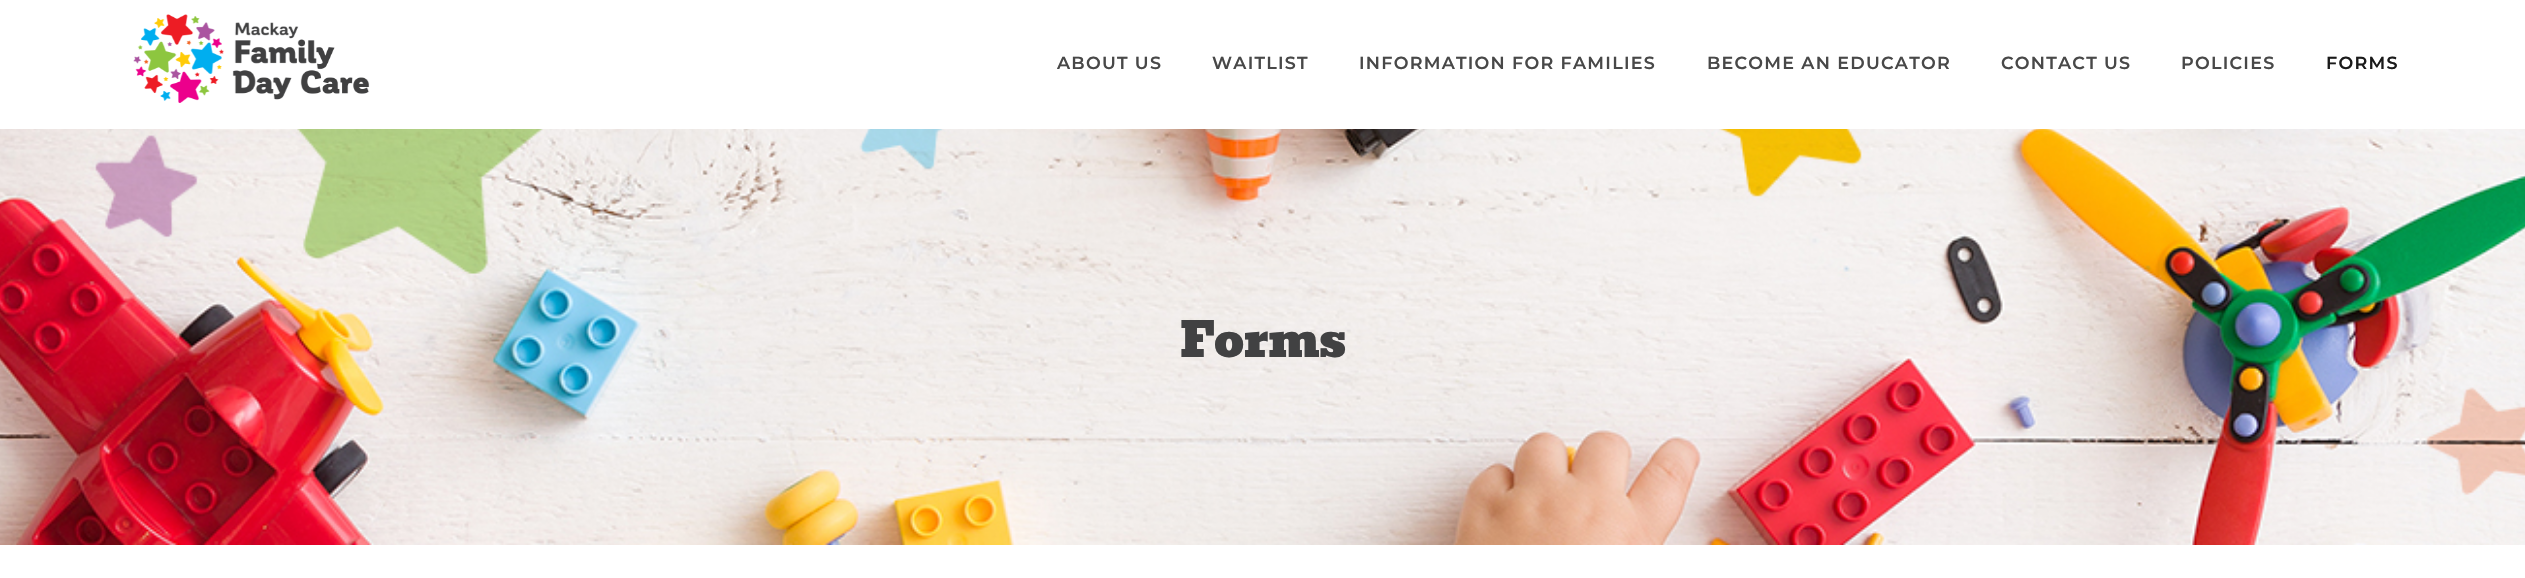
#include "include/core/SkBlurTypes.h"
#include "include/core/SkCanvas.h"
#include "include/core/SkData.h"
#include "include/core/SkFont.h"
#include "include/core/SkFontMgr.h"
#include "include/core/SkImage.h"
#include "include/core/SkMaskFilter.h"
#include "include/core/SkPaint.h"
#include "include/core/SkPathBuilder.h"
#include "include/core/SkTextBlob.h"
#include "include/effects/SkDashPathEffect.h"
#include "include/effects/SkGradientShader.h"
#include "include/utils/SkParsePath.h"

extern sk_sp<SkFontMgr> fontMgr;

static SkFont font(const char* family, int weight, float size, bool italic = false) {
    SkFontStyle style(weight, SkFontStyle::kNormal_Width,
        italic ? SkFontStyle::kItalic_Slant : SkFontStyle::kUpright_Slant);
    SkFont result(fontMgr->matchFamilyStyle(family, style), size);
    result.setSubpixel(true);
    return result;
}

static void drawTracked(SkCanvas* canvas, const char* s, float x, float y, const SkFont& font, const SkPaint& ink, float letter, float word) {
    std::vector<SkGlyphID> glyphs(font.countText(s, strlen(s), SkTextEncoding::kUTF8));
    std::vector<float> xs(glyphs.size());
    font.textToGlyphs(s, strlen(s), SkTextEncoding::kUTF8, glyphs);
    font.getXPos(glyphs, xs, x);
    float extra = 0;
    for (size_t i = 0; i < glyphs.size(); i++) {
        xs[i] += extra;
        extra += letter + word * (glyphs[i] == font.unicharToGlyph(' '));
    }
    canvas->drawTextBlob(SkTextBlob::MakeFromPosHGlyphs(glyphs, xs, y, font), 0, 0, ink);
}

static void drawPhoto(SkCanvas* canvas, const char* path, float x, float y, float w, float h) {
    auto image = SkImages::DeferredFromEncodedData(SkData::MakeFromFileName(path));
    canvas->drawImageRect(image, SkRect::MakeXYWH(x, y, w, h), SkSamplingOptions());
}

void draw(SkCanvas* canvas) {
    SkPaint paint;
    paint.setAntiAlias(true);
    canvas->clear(0xFFFFFFFF);
    drawPhoto(canvas, "assets/img1.png", 133, 14, 237, 89);
    SkFont font1 = font("Montserrat", 600, 17.5f);
    paint.setColor(0xFF484848);
    drawTracked(canvas, "ABOUT US", 1057, 69, font1, paint, 1.25f, 0);
    drawTracked(canvas, "WAITLIST", 1212, 69, font1, paint, 1.25f, 0);
    drawTracked(canvas, "INFORMATION FOR FAMILIES", 1359, 69, font1, paint, 1.25f, 0);
    drawTracked(canvas, "BECOME AN EDUCATOR", 1707, 69, font1, paint, 1.25f, 0);
    drawTracked(canvas, "CONTACT US", 2001, 69, font1, paint, 1.25f, 0);
    drawTracked(canvas, "POLICIES", 2181, 69, font1, paint, 1.25f, 0);
    paint.setColor(0xFF1A1A1A);
    drawTracked(canvas, "FORMS", 2326, 69, font1, paint, 1.25f, 0);
    drawPhoto(canvas, "assets/img2.png", 0, 129, 2525, 416);
    SkFont font2 = font("Bevan", 400, 47.5f);
    paint.setColor(0xFF414142);
    drawTracked(canvas, "Forms", 1180, 357, font2, paint, -1, 0);
}
